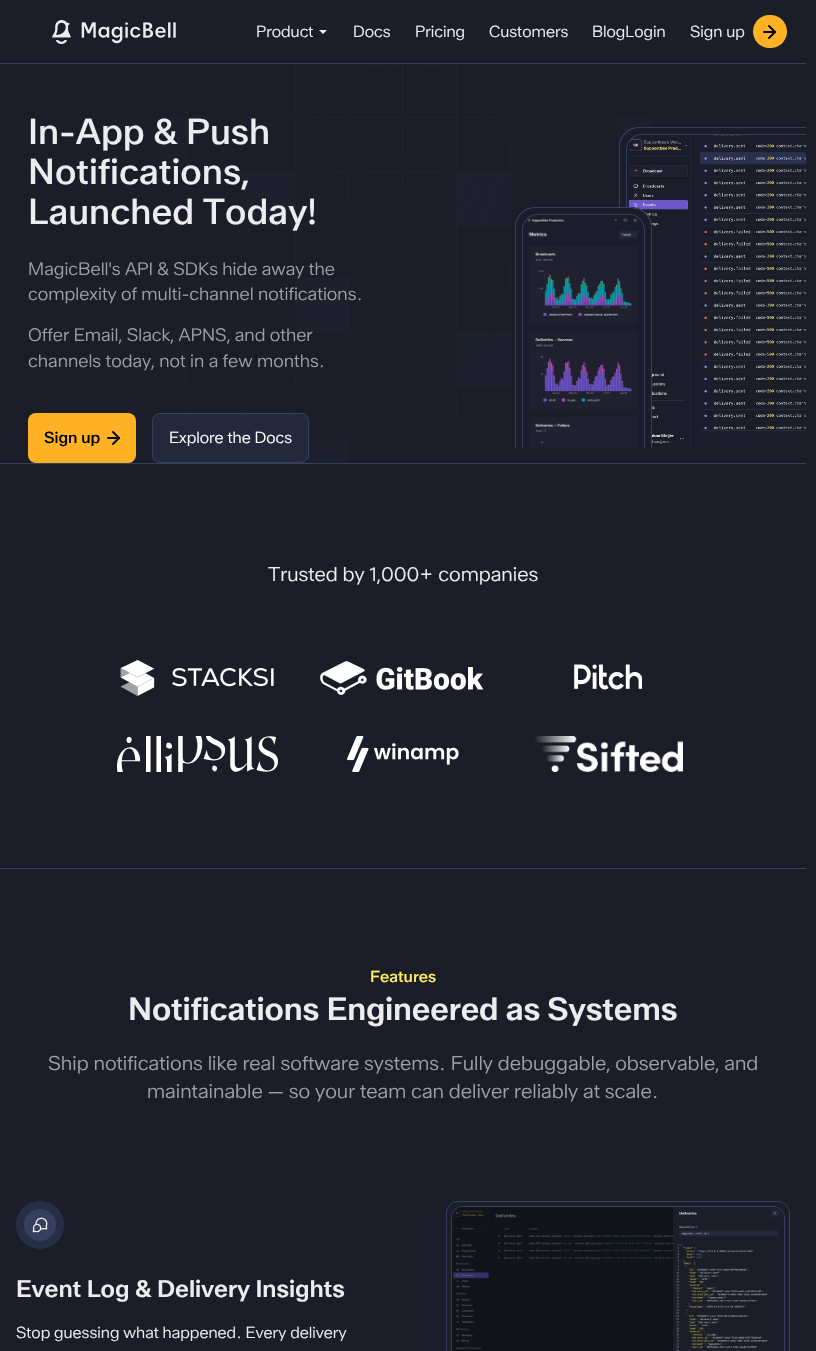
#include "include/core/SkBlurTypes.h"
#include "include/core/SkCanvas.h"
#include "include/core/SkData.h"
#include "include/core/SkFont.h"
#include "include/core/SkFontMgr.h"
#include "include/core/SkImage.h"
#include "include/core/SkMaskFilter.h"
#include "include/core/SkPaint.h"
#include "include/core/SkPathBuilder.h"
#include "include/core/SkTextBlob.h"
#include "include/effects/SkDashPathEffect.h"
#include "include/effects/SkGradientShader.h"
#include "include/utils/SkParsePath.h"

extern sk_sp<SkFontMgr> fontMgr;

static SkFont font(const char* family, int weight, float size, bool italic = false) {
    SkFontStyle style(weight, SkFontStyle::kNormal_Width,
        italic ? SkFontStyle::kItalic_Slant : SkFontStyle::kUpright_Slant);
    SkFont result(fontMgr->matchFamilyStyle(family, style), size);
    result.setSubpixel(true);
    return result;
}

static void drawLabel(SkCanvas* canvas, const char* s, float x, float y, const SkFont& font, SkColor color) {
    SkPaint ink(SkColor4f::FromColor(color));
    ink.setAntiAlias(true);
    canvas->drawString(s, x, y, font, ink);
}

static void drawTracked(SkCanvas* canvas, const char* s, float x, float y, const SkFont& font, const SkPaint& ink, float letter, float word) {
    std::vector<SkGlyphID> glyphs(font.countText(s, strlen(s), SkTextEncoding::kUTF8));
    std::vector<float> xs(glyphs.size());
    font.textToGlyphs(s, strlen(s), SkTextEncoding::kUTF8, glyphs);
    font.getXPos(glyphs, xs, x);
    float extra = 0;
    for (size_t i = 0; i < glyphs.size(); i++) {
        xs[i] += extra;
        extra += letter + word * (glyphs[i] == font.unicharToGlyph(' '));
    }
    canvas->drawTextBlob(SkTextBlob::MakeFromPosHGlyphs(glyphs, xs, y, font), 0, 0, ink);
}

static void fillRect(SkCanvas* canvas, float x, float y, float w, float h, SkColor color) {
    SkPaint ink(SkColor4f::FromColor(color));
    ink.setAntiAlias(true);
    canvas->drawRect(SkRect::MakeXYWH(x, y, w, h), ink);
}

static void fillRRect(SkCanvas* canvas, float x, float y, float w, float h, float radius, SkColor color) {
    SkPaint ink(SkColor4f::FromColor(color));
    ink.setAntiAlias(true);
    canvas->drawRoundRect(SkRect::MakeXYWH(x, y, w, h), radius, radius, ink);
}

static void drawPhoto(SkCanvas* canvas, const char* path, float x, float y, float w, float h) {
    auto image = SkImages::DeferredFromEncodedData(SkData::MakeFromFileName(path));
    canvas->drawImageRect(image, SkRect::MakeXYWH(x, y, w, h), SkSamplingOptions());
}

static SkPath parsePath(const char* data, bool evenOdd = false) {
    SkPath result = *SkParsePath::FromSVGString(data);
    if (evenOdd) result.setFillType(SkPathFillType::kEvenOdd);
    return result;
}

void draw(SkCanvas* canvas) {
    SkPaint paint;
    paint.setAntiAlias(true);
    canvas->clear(0xFF1B1D29);
    fillRect(canvas, 0, 63, 806, 1, 0xFF354061);
    drawPhoto(canvas, "assets/img1.png", 52, 20, 124, 24);
    SkFont font1 = font("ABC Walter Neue", 300, 16);
    drawLabel(canvas, "Product", 256, 37, font1, 0xFFEDEDEF);
    paint.setColor(0xFFEDEDEF);
    canvas->drawPath(parsePath("M323 34L319 30H327Z"), paint);
    drawLabel(canvas, "Docs", 353, 37, font1, 0xFFEDEDEF);
    drawLabel(canvas, "Pricing", 415, 37, font1, 0xFFEDEDEF);
    drawLabel(canvas, "Customers", 489, 37, font1, 0xFFEDEDEF);
    drawLabel(canvas, "BlogLogin", 592, 37, font1, 0xFFEDEDEF);
    drawLabel(canvas, "Sign up", 690, 37, font1, 0xFFEDEDEF);
    fillRRect(canvas, 753, 15, 34, 33, 16.5f, 0xFFFFB224);
    drawPhoto(canvas, "assets/img2.png", 763, 25, 13, 14);
    drawPhoto(canvas, "assets/img3.png", 160, 64, 494, 399);
    fillRect(canvas, 0, 463, 806, 1, 0xFF354061);
    SkFont font2 = font("ABC Walter Neue", 400, 36);
    drawLabel(canvas, "In-App & Push", 28, 144, font2, 0xFFEDEDEF);
    drawLabel(canvas, "Notifications,", 28, 184, font2, 0xFFEDEDEF);
    drawLabel(canvas, "Launched Today!", 28, 224, font2, 0xFFEDEDEF);
    SkFont font3 = font("ABC Walter Neue", 300, 18);
    drawLabel(canvas, "MagicBell's API & SDKs hide away the", 28, 275, font3, 0xFFA09FA6);
    drawLabel(canvas, "complexity of multi-channel notifications.", 28, 300, font3, 0xFFA09FA6);
    drawLabel(canvas, "Offer Email, Slack, APNS, and other", 28, 341, font3, 0xFFA09FA6);
    drawLabel(canvas, "channels today, not in a few months.", 28, 367, font3, 0xFFA09FA6);
    fillRRect(canvas, 28, 413, 108, 50, 8, 0xFFFFB224);
    SkFont font4 = font("ABC Walter Neue", 400, 16);
    drawLabel(canvas, "Sign up", 44, 443, font4, 0xFF000000);
    drawPhoto(canvas, "assets/img2.png", 107, 431, 13, 14);
    paint.setColor(0xFF23283B);
    canvas->drawRoundRect(SkRect::MakeXYWH(152.5f, 413.5f, 156, 49), 7.5f, 7.5f, paint);
    paint.setStroke(true);
    paint.setStrokeWidth(1);
    paint.setColor(0xFF354061);
    canvas->drawRoundRect(SkRect::MakeXYWH(152.5f, 413.5f, 156, 49), 7.5f, 7.5f, paint);
    drawLabel(canvas, "Explore the Docs", 169, 443, font1, 0xFFFFFFFF);
    paint.setStroke(false);
    paint.setColor(0xFF1B1D29);
    canvas->drawPath(parsePath("M639 128H806V448H620V147C620 136.5 628.5 128 639 128Z"), paint);
    canvas->save();
    canvas->clipRect(SkRect::MakeXYWH(0, 64, 806, 399));
    paint.setColor(0xFF354061);
    canvas->drawPath(parsePath("M639 127H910C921 127 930 136 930 147V448H619V147C619 136 628 127 639 127ZM639 128H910C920 128 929 137 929 147V448H620V147C620 137 629 128 639 128Z", true), paint);
    canvas->drawPath(parsePath("M642 134H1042C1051 134 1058 141 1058 150V448H626V150C626 141 633 134 642 134ZM642 135H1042C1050 135 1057 142 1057 150V448H627V150C627 142 634 135 642 135Z", true), paint);
    canvas->restore();
    drawPhoto(canvas, "assets/img5.png", 627, 135, 179, 313);
    paint.setColor(0xFF1B1D29);
    canvas->drawPath(parsePath("M535 208H632C642.5 208 651 216.5 651 227V448H516V227C516 216.5 524.5 208 535 208Z"), paint);
    paint.setColor(0xFF354061);
    canvas->drawPath(parsePath("M535 207H632C643 207 652 216 652 227V448H515V227C515 216 524 207 535 207ZM535 208H632C642 208 651 217 651 227V448H516V227C516 217 525 208 535 208Z", true), paint);
    canvas->drawPath(parsePath("M538 214H629C638 214 645 221 645 230V448H522V230C522 221 529 214 538 214ZM538 215H629C637 215 644 222 644 230V448H523V230C523 222 530 215 538 215Z", true), paint);
    drawPhoto(canvas, "assets/img4.png", 523, 215, 121, 233);
    fillRect(canvas, 0, 868, 806, 1, 0xFF354061);
    SkFont font5 = font("ABC Walter Neue", 300, 20);
    drawLabel(canvas, "Trusted by 1,000+ companies", 268, 581, font5, 0xFFEDEDEF);
    drawPhoto(canvas, "assets/img6.png", 120, 660, 154, 36);
    drawPhoto(canvas, "assets/img7.png", 320, 661, 164, 34);
    drawPhoto(canvas, "assets/img8.png", 574, 664, 68, 26);
    drawPhoto(canvas, "assets/img9.png", 117, 736, 161, 36);
    drawPhoto(canvas, "assets/img10.png", 347, 736, 112, 36);
    drawPhoto(canvas, "assets/img11.png", 535, 736, 148, 36);
    drawLabel(canvas, "Features", 370, 982, font4, 0xFFFFEF5C);
    SkFont font6 = font("ABC Walter Neue", 500, 32);
    paint.setColor(0xFFEDEDEF);
    drawTracked(canvas, "Notifications Engineered as Systems", 128, 1020, font6, paint, -0.2f, 0);
    drawLabel(canvas, "Ship notifications like real software systems. Fully debuggable, observable, and", 48, 1070, font5, 0xFFA09FA6);
    drawLabel(canvas, "maintainable — so your team can deliver reliably at scale.", 147, 1098, font5, 0xFFA09FA6);
    paint.setColor(0xFF354061);
    canvas->drawCircle(40, 1225, 20, paint);
    paint.setStroke(true);
    paint.setStrokeWidth(8);
    paint.setColor(0xFF262E45);
    canvas->drawCircle(40, 1225, 20, paint);
    drawPhoto(canvas, "assets/img12.png", 32, 1217, 16, 16);
    SkFont font7 = font("ABC Walter Neue", 500, 24);
    paint.setStroke(false);
    paint.setColor(0xFFEDEDEF);
    drawTracked(canvas, "Event Log & Delivery Insights", 16, 1297, font7, paint, -0.1f, 0);
    drawLabel(canvas, "Stop guessing what happened. Every delivery", 16, 1338, font1, 0xFFEDEDEF);
    paint.setStroke(true);
    paint.setStrokeWidth(1);
    paint.setColor(0xFF354061);
    canvas->drawRoundRect(SkRect::MakeXYWH(446.5f, 1201.5f, 343, 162), 11.5f, 11.5f, paint);
    canvas->drawRoundRect(SkRect::MakeXYWH(451.5f, 1206.5f, 333, 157), 11.5f, 11.5f, paint);
    drawPhoto(canvas, "assets/img13.png", 452, 1207, 332, 144);
}
